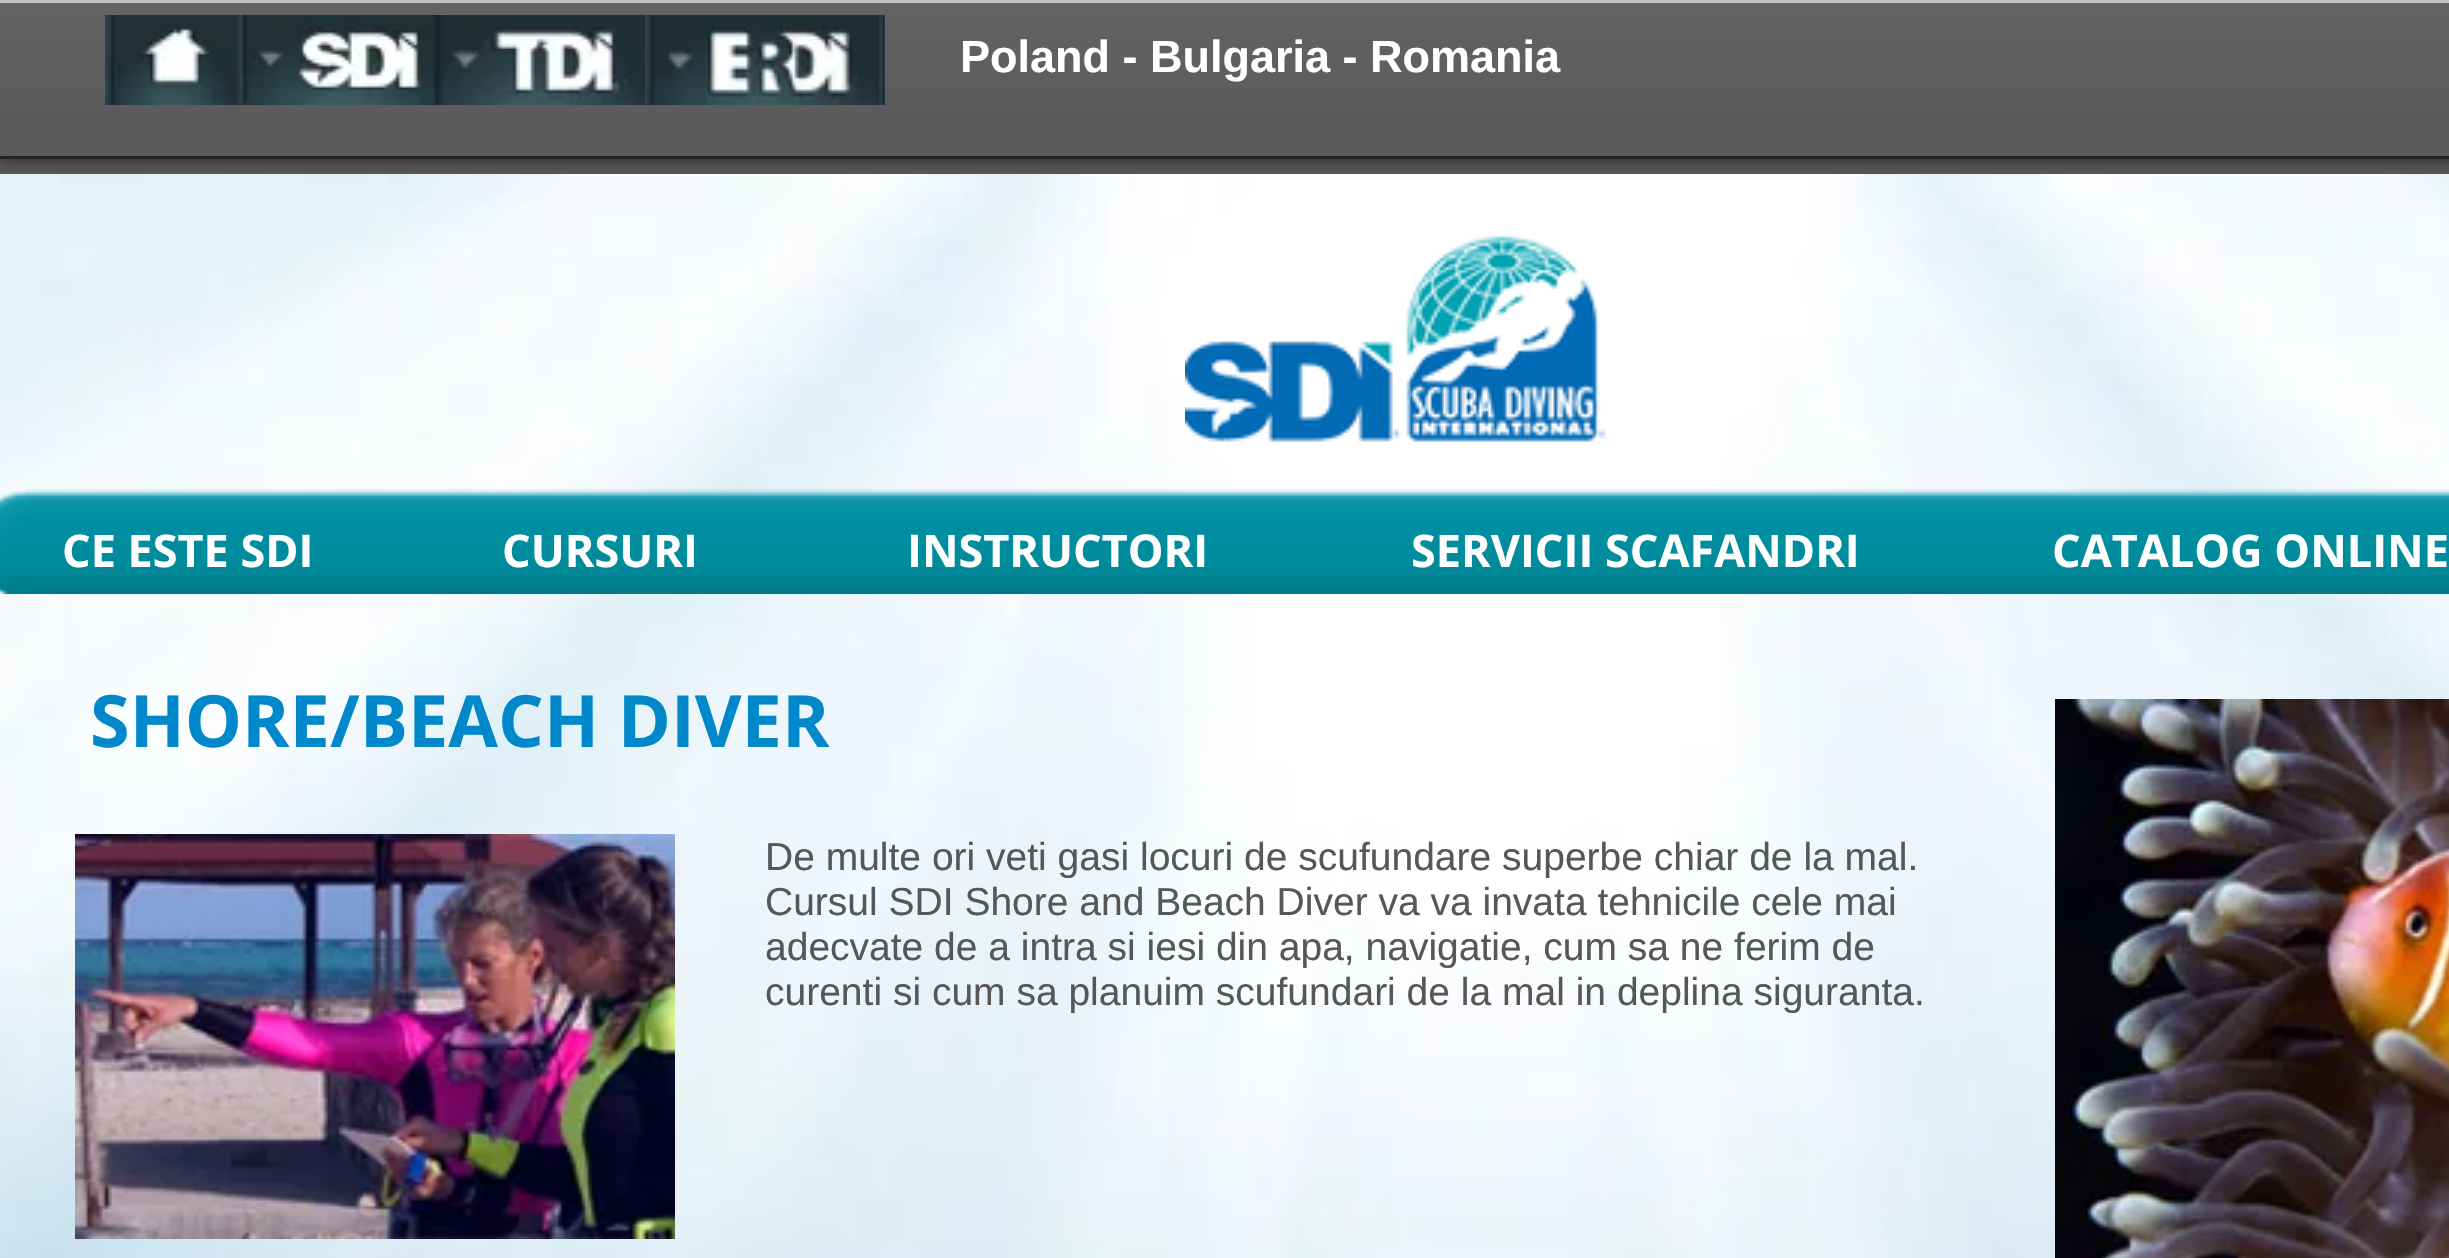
#include "include/core/SkBlurTypes.h"
#include "include/core/SkCanvas.h"
#include "include/core/SkData.h"
#include "include/core/SkFont.h"
#include "include/core/SkFontMgr.h"
#include "include/core/SkImage.h"
#include "include/core/SkMaskFilter.h"
#include "include/core/SkPaint.h"
#include "include/core/SkPathBuilder.h"
#include "include/core/SkTextBlob.h"
#include "include/effects/SkDashPathEffect.h"
#include "include/effects/SkGradientShader.h"
#include "include/utils/SkParsePath.h"

extern sk_sp<SkFontMgr> fontMgr;

static SkFont font(const char* family, int weight, float size, bool italic = false) {
    SkFontStyle style(weight, SkFontStyle::kNormal_Width,
        italic ? SkFontStyle::kItalic_Slant : SkFontStyle::kUpright_Slant);
    SkFont result(fontMgr->matchFamilyStyle(family, style), size);
    result.setSubpixel(true);
    return result;
}

static void drawLabel(SkCanvas* canvas, const char* s, float x, float y, const SkFont& font, SkColor color) {
    SkPaint ink(SkColor4f::FromColor(color));
    ink.setAntiAlias(true);
    canvas->drawString(s, x, y, font, ink);
}

static void fillRect(SkCanvas* canvas, float x, float y, float w, float h, SkColor color) {
    SkPaint ink(SkColor4f::FromColor(color));
    ink.setAntiAlias(true);
    canvas->drawRect(SkRect::MakeXYWH(x, y, w, h), ink);
}

static void drawPhoto(SkCanvas* canvas, const char* path, float x, float y, float w, float h) {
    auto image = SkImages::DeferredFromEncodedData(SkData::MakeFromFileName(path));
    canvas->drawImageRect(image, SkRect::MakeXYWH(x, y, w, h), SkSamplingOptions());
}

void draw(SkCanvas* canvas) {
    SkPaint paint;
    paint.setAntiAlias(true);
    canvas->clear(0xFF575757);
    paint.setColor(0x99000000);
    paint.setMaskFilter(SkMaskFilter::MakeBlur(kNormal_SkBlurStyle, 7.5f));
    canvas->drawRect(SkRect::MakeXYWH(0, 0, 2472, 159), paint);
    paint.setMaskFilter(nullptr);
    fillRect(canvas, 0, 3, 2449, 153, 0xFF2D2D2D);
    drawPhoto(canvas, "assets/img1.png", 0, 3, 2449, 153);
    fillRect(canvas, 0, 156, 2449, 3, 0xFF232323);
    fillRect(canvas, 0, 0, 2449, 3, 0xFFC1C1C1);
    drawPhoto(canvas, "assets/img2.png", 105, 15, 135, 90);
    drawPhoto(canvas, "assets/img3.png", 240, 15, 195, 90);
    drawPhoto(canvas, "assets/img4.png", 435, 15, 210, 90);
    drawPhoto(canvas, "assets/img5.png", 645, 15, 240, 90);
    SkFont font1 = font("Liberation Sans", 700, 45);
    drawLabel(canvas, "Poland - Bulgaria - Romania", 960, 72, font1, 0xFFFFFFFF);
    drawPhoto(canvas, "assets/img6.png", 0, 174, 2449, 1084);
    drawPhoto(canvas, "assets/img7.png", 1185, 234, 421, 210);
    drawPhoto(canvas, "assets/img8.png", 0, 489, 2449, 105);
    SkFont font2 = font("Open Sans", 700, 45);
    drawLabel(canvas, "CE ESTE SDI", 62, 567, font2, 0xFFFFFFFF);
    drawLabel(canvas, "CURSURI", 502, 567, font2, 0xFFFFFFFF);
    drawLabel(canvas, "INSTRUCTORI", 907, 567, font2, 0xFFFFFFFF);
    drawLabel(canvas, "SERVICII SCAFANDRI", 1411, 567, font2, 0xFFFFFFFF);
    drawLabel(canvas, "CATALOG ONLINE", 2052, 567, font2, 0xFFFFFFFF);
    SkFont font3 = font("Open Sans", 700, 72);
    drawLabel(canvas, "SHORE/BEACH DIVER", 90, 747, font3, 0xFF0088CB);
    drawPhoto(canvas, "assets/img9.png", 2055, 699, 394, 559);
    drawPhoto(canvas, "assets/img10.png", 75, 834, 600, 405);
    SkFont font4 = font("Liberation Sans", 400, 39);
    drawLabel(canvas, "De multe ori veti gasi locuri de scufundare superbe chiar de la mal.", 765, 870, font4, 0xFF575757);
    drawLabel(canvas, "Cursul SDI Shore and Beach Diver va va invata tehnicile cele mai", 765, 915, font4, 0xFF575757);
    drawLabel(canvas, "adecvate de a intra si iesi din apa, navigatie, cum sa ne ferim de", 765, 960, font4, 0xFF575757);
    drawLabel(canvas, "curenti si cum sa planuim scufundari de la mal in deplina siguranta.", 765, 1005, font4, 0xFF575757);
}
